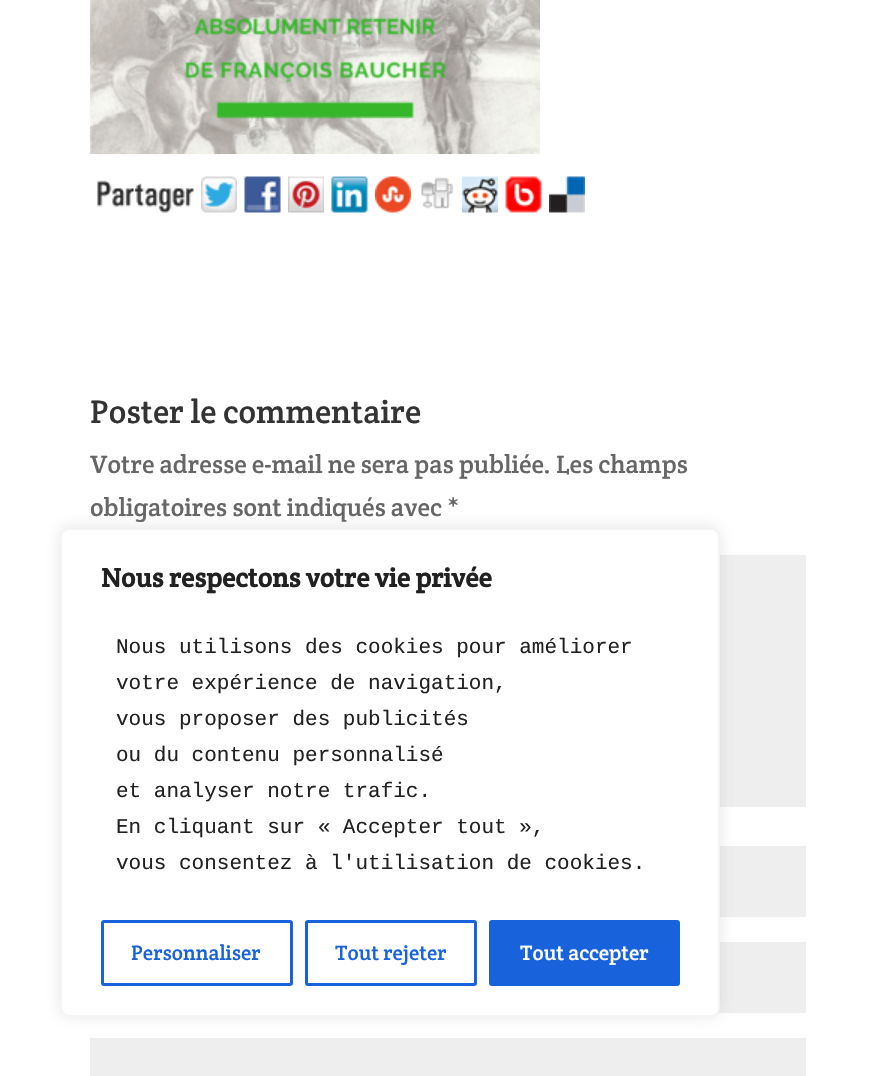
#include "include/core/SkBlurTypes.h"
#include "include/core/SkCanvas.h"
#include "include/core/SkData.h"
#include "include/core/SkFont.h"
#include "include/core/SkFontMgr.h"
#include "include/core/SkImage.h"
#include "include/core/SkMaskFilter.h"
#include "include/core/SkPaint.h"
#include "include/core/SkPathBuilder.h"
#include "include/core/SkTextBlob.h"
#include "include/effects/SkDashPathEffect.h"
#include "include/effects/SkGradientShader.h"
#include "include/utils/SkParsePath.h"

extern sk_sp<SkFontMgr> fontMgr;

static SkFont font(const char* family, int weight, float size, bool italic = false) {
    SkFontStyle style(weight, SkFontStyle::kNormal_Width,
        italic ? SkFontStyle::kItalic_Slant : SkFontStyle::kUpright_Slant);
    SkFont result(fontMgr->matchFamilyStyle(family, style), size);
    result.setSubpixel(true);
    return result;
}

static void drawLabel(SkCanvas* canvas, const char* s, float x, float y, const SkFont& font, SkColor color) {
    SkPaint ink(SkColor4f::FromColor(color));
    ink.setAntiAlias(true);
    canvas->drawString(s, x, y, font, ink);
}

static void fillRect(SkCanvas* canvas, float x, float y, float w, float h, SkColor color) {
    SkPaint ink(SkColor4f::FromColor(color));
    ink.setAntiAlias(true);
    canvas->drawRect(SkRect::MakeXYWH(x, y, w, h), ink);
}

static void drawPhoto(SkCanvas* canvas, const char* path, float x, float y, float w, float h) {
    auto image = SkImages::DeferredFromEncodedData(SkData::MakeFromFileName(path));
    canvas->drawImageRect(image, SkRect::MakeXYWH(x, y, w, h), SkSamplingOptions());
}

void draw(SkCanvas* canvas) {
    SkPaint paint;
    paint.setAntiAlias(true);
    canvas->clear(0xFFFFFFFF);
    drawPhoto(canvas, "assets/img1.png", 90, 0, 450, 154);
    drawPhoto(canvas, "assets/img2.png", 96, 180, 98, 33);
    drawPhoto(canvas, "assets/img3.png", 201, 176, 36, 37);
    drawPhoto(canvas, "assets/img4.png", 244, 176, 37, 37);
    drawPhoto(canvas, "assets/img5.png", 288, 176, 36, 37);
    drawPhoto(canvas, "assets/img6.png", 331, 176, 37, 37);
    drawPhoto(canvas, "assets/img7.png", 375, 176, 36, 37);
    drawPhoto(canvas, "assets/img8.png", 421, 177, 33, 32);
    drawPhoto(canvas, "assets/img9.png", 462, 176, 36, 37);
    drawPhoto(canvas, "assets/img10.png", 505, 176, 37, 37);
    drawPhoto(canvas, "assets/img11.png", 549, 176, 36, 37);
    SkFont font1 = font("Crete Round", 400, 33);
    drawLabel(canvas, "Poster le commentaire", 90, 423, font1, 0xFF333333);
    SkFont font2 = font("Crete Round", 400, 25.5f);
    drawLabel(canvas, "Votre adresse e-mail ne sera pas publiée. Les champs", 90, 473, font2, 0xFF666666);
    drawLabel(canvas, "obligatoires sont indiqués avec *", 90, 516, font2, 0xFF666666);
    fillRect(canvas, 720, 555, 86, 252, 0xFFEEEEEE);
    fillRect(canvas, 720, 846, 86, 71, 0xFFEEEEEE);
    fillRect(canvas, 718, 942, 88, 71, 0xFFEEEEEE);
    fillRect(canvas, 90, 1038, 716, 38, 0xFFEEEEEE);
    paint.setColor(0x4DACABAB);
    paint.setMaskFilter(SkMaskFilter::MakeBlur(kNormal_SkBlurStyle, 7.5f));
    canvas->drawRoundRect(SkRect::MakeXYWH(60, 527, 660, 489), 9, 9, paint);
    paint.setMaskFilter(nullptr);
    paint.setColor(0xFFFFFFFF);
    canvas->drawRoundRect(SkRect::MakeXYWH(61, 529, 658, 487), 8, 8, paint);
    paint.setStroke(true);
    paint.setStrokeWidth(2);
    paint.setColor(0xFFF4F4F4);
    canvas->drawRoundRect(SkRect::MakeXYWH(61, 529, 658, 487), 8, 8, paint);
    SkFont font3 = font("Crete Round", 700, 27);
    drawLabel(canvas, "Nous respectons votre vie privée", 101, 587, font3, 0xFF212121);
    SkFont font4 = font("Liberation Mono", 400, 21);
    drawLabel(canvas, "Nous utilisons des cookies pour améliorer", 116, 653, font4, 0xFF212121);
    drawLabel(canvas, "votre expérience de navigation,", 116, 689, font4, 0xFF212121);
    drawLabel(canvas, "vous proposer des publicités", 116, 725, font4, 0xFF212121);
    drawLabel(canvas, "ou du contenu personnalisé", 116, 761, font4, 0xFF212121);
    drawLabel(canvas, "et analyser notre trafic.", 116, 797, font4, 0xFF212121);
    drawLabel(canvas, "En cliquant sur « Accepter tout »,", 116, 833, font4, 0xFF212121);
    drawLabel(canvas, "vous consentez à l'utilisation de cookies.", 116, 869, font4, 0xFF212121);
    paint.setStrokeWidth(3);
    paint.setColor(0xFF1863DC);
    canvas->drawRoundRect(SkRect::MakeXYWH(102.5f, 921.5f, 189, 63), 1.5f, 1.5f, paint);
    SkFont font5 = font("Crete Round", 400, 21);
    drawLabel(canvas, "Personnaliser", 131, 960, font5, 0xFF1863DC);
    canvas->drawRoundRect(SkRect::MakeXYWH(306.5f, 921.5f, 169, 63), 1.5f, 1.5f, paint);
    drawLabel(canvas, "Tout rejeter", 335, 960, font5, 0xFF1863DC);
    paint.setStroke(false);
    canvas->drawRoundRect(SkRect::MakeXYWH(490.5f, 921.5f, 188, 63), 1.5f, 1.5f, paint);
    paint.setStroke(true);
    canvas->drawRoundRect(SkRect::MakeXYWH(490.5f, 921.5f, 188, 63), 1.5f, 1.5f, paint);
    drawLabel(canvas, "Tout accepter", 520, 960, font5, 0xFFFFFFFF);
}
